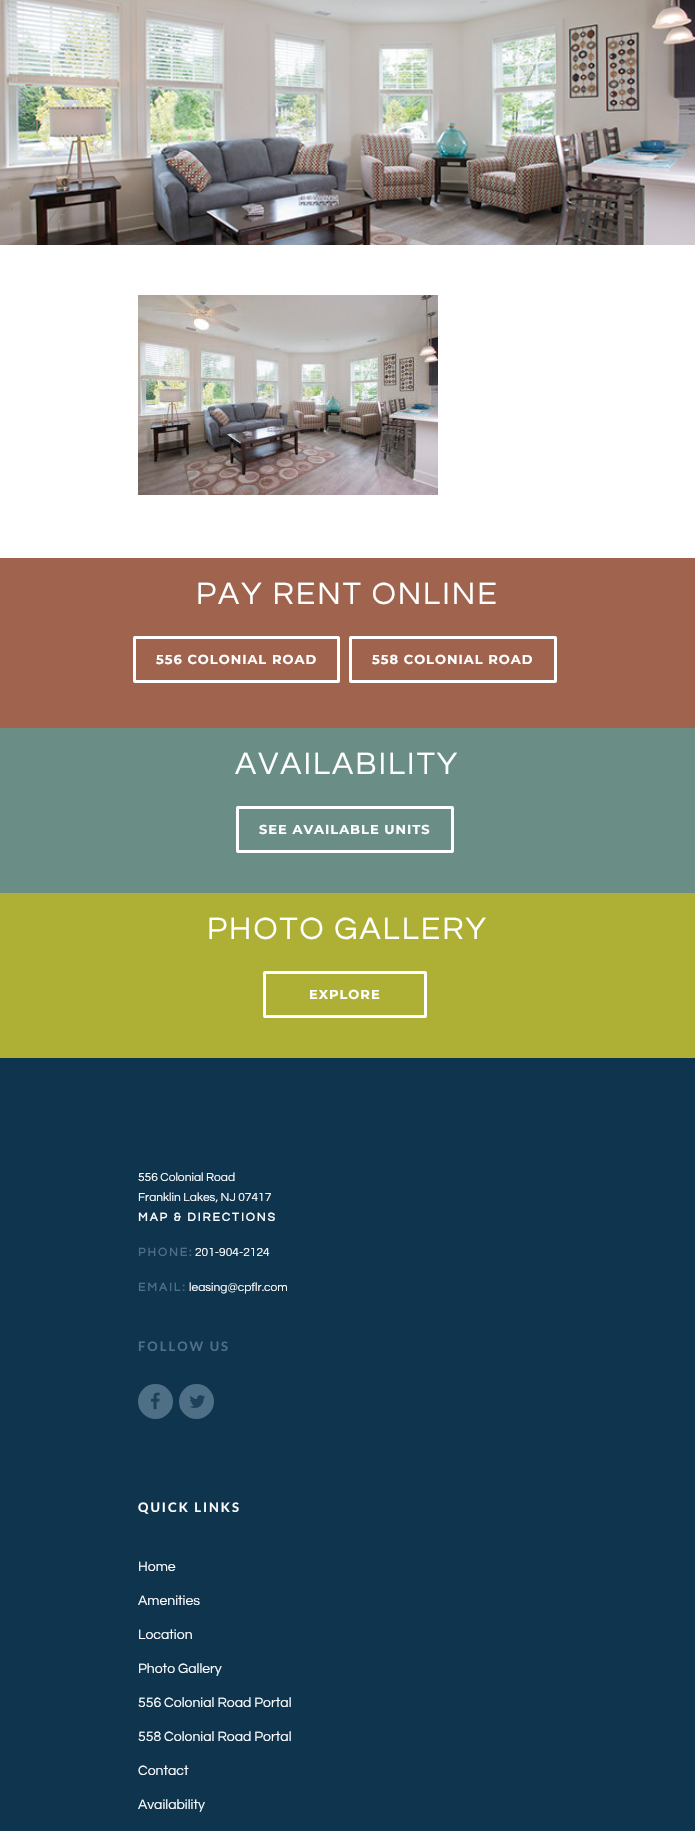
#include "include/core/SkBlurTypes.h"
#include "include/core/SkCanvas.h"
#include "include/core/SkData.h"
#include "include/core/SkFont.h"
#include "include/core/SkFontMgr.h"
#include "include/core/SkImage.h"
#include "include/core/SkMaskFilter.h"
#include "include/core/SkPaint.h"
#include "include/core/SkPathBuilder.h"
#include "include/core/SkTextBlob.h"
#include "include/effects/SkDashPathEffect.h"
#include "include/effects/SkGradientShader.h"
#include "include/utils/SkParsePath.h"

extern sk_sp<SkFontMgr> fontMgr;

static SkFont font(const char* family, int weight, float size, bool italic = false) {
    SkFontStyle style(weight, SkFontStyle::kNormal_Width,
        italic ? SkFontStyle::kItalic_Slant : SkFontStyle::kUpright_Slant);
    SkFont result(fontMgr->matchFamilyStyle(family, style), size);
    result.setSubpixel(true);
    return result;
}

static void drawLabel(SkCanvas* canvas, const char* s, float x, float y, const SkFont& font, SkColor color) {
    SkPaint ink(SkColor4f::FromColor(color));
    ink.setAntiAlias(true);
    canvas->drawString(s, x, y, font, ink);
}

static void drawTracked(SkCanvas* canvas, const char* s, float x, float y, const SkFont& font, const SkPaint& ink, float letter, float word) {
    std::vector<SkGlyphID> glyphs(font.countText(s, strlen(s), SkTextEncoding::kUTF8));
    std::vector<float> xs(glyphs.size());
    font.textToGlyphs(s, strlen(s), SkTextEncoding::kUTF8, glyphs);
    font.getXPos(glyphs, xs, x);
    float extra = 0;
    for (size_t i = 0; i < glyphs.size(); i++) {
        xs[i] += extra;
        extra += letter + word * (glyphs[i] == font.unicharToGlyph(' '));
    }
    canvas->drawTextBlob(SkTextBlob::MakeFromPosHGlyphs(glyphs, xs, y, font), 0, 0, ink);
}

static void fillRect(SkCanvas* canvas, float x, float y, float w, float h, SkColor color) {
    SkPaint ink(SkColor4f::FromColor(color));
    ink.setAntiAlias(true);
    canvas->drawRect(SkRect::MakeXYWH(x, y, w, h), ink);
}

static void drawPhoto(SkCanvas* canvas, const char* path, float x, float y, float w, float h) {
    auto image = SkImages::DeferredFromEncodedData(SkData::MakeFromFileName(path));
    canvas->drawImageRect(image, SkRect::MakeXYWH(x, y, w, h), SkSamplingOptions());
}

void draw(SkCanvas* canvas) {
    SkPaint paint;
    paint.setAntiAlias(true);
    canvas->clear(0xFFFFFFFF);
    drawPhoto(canvas, "assets/img1.png", 0, 0, 695, 245);
    drawPhoto(canvas, "assets/img2.png", 138, 295, 300, 200);
    fillRect(canvas, 0, 558, 695, 170, 0xFF9F634E);
    SkFont font1 = font("Questrial", 400, 32);
    paint.setColor(0xFFFFFFFF);
    drawTracked(canvas, "PAY RENT ONLINE", 196, 604, font1, paint, 2, 0);
    paint.setStroke(true);
    paint.setStrokeWidth(3);
    canvas->drawRoundRect(SkRect::MakeXYWH(134.5f, 637.5f, 204, 44), 0.5f, 0.5f, paint);
    SkFont font2 = font("Montserrat", 700, 13);
    paint.setStroke(false);
    drawTracked(canvas, "556 COLONIAL ROAD", 156, 664, font2, paint, 1, 0);
    paint.setStroke(true);
    canvas->drawRoundRect(SkRect::MakeXYWH(350.5f, 637.5f, 205, 44), 0.5f, 0.5f, paint);
    paint.setStroke(false);
    drawTracked(canvas, "558 COLONIAL ROAD", 372, 664, font2, paint, 1, 0);
    fillRect(canvas, 0, 728, 695, 165, 0xFF6A8E85);
    drawTracked(canvas, "AVAILABILITY", 235, 774, font1, paint, 2, 0);
    paint.setStroke(true);
    canvas->drawRoundRect(SkRect::MakeXYWH(237.5f, 807.5f, 215, 44), 0.5f, 0.5f, paint);
    paint.setStroke(false);
    drawTracked(canvas, "SEE AVAILABLE UNITS", 259, 834, font2, paint, 1, 0);
    fillRect(canvas, 0, 893, 695, 165, 0xFFAEB035);
    drawTracked(canvas, "PHOTO GALLERY", 207, 939, font1, paint, 2, 0);
    paint.setStroke(true);
    canvas->drawRoundRect(SkRect::MakeXYWH(264.5f, 972.5f, 161, 44), 0.5f, 0.5f, paint);
    paint.setStroke(false);
    drawTracked(canvas, "EXPLORE", 309, 999, font2, paint, 1, 0);
    fillRect(canvas, 0, 1058, 695, 773, 0xFF0F344E);
    SkFont font3 = font("Questrial", 400, 12);
    drawLabel(canvas, "556 Colonial Road", 138, 1181, font3, 0xFFFFFFFF);
    drawLabel(canvas, "Franklin Lakes, NJ 07417", 138, 1201, font3, 0xFFFFFFFF);
    SkFont font4 = font("Questrial", 700, 12);
    drawTracked(canvas, "MAP & DIRECTIONS", 138, 1221, font4, paint, 2, 0);
    paint.setColor(0xFF4F6F86);
    drawTracked(canvas, "PHONE:", 138, 1256, font4, paint, 2, 0);
    drawLabel(canvas, "201-904-2124", 195, 1256, font3, 0xFFFFFFFF);
    drawTracked(canvas, "EMAIL:", 138, 1291, font4, paint, 2, 0);
    drawLabel(canvas, "leasing@cpflr.com", 189, 1291, font3, 0xFFFFFFFF);
    SkFont font5 = font("Lato", 700, 13);
    drawTracked(canvas, "FOLLOW US", 138, 1351, font5, paint, 2, 0);
    canvas->drawCircle(155.5f, 1401.5f, 17.5f, paint);
    drawPhoto(canvas, "assets/img3.png", 151, 1392, 9, 18);
    canvas->drawCircle(196.5f, 1401.5f, 17.5f, paint);
    drawPhoto(canvas, "assets/img4.png", 189, 1395, 16, 13);
    paint.setColor(0xFFFFFFFF);
    drawTracked(canvas, "QUICK LINKS", 138, 1512, font5, paint, 2, 0);
    SkFont font6 = font("Questrial", 400, 14);
    drawLabel(canvas, "Home", 138, 1571, font6, 0xFFFFFFFF);
    drawLabel(canvas, "Amenities", 138, 1605, font6, 0xFFFFFFFF);
    drawLabel(canvas, "Location", 138, 1639, font6, 0xFFFFFFFF);
    drawLabel(canvas, "Photo Gallery", 138, 1673, font6, 0xFFFFFFFF);
    drawLabel(canvas, "556 Colonial Road Portal", 138, 1707, font6, 0xFFFFFFFF);
    drawLabel(canvas, "558 Colonial Road Portal", 138, 1741, font6, 0xFFFFFFFF);
    drawLabel(canvas, "Contact", 138, 1775, font6, 0xFFFFFFFF);
    drawLabel(canvas, "Availability", 138, 1809, font6, 0xFFFFFFFF);
}
